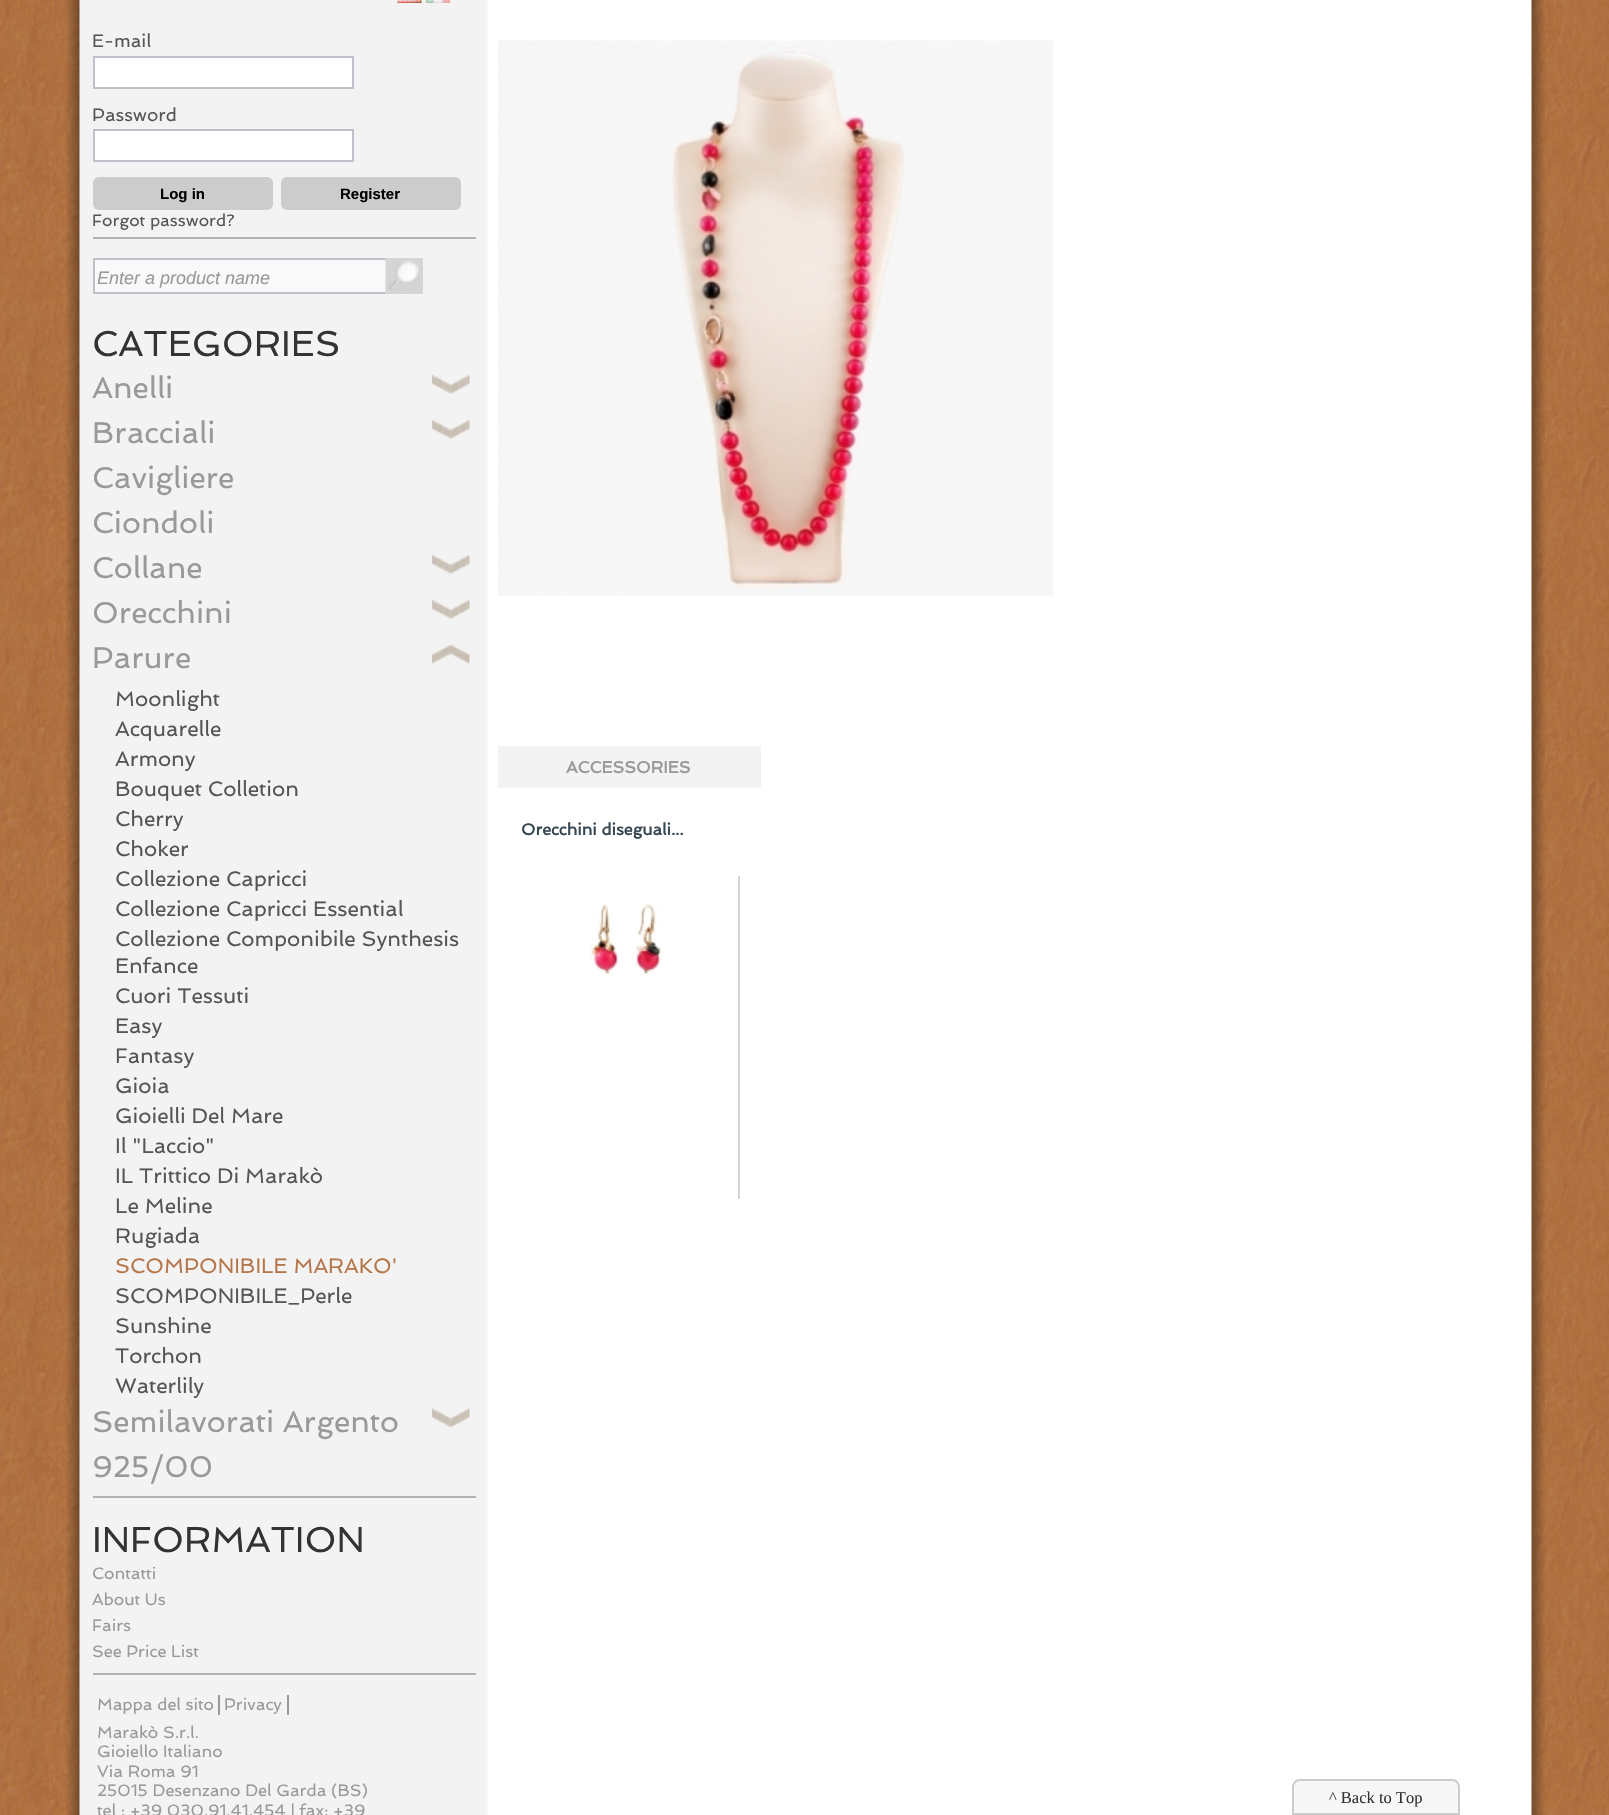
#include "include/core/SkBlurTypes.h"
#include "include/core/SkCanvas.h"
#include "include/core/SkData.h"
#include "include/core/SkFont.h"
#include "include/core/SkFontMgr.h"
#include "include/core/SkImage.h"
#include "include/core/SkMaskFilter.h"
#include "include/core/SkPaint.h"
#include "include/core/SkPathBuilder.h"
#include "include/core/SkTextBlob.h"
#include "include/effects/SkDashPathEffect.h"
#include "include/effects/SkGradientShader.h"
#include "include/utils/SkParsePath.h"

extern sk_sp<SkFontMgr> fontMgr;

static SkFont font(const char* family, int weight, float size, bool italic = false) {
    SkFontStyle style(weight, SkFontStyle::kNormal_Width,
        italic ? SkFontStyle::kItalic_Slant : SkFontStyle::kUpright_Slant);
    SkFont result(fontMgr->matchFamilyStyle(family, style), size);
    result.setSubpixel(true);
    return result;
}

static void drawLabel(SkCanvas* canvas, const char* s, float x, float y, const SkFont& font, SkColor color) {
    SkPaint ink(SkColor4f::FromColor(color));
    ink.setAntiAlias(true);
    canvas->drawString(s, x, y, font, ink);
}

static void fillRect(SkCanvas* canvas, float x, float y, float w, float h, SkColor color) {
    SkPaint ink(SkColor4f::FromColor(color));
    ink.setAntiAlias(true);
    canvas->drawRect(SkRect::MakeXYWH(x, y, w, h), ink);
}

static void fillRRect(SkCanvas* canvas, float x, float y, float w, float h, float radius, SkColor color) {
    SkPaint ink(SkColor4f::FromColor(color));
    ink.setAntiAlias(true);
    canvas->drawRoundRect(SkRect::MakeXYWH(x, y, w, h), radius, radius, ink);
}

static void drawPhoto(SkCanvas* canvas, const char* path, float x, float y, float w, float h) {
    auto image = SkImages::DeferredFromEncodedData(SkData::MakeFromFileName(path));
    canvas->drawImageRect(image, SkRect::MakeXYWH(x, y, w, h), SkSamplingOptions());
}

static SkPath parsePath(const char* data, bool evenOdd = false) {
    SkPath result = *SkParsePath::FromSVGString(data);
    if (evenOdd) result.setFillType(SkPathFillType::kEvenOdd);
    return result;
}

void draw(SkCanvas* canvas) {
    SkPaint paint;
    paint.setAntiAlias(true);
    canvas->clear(0xFFFFFFFF);
    drawPhoto(canvas, "assets/img1.png", 0, 0, 1609, 1815);
    drawPhoto(canvas, "assets/img2.png", 66, 0, 1479, 1815);
    drawPhoto(canvas, "assets/img3.png", 397, 0, 25, 3);
    drawPhoto(canvas, "assets/img4.png", 426, 0, 24, 3);
    fillRect(canvas, 93, 237, 383, 2, 0xFFB2B2B2);
    SkFont font1 = font("Spinnaker", 400, 18);
    drawLabel(canvas, "E-mail", 92, 47, font1, 0xFF555555);
    paint.setColor(0xFFFFFFFF);
    canvas->drawRect(SkRect::MakeXYWH(94, 57, 259, 31), paint);
    paint.setStroke(true);
    paint.setStrokeWidth(2);
    paint.setColor(0xFFBDC2C9);
    canvas->drawRect(SkRect::MakeXYWH(94, 57, 259, 31), paint);
    drawLabel(canvas, "Password", 92, 121, font1, 0xFF555555);
    paint.setStroke(false);
    paint.setColor(0xFFFFFFFF);
    canvas->drawRect(SkRect::MakeXYWH(94, 130, 259, 31), paint);
    paint.setStroke(true);
    paint.setColor(0xFFBDC2C9);
    canvas->drawRect(SkRect::MakeXYWH(94, 130, 259, 31), paint);
    fillRRect(canvas, 93, 177, 180, 33, 6, 0xFFCCCCCC);
    SkFont font2 = font("Liberation Sans", 700, 15);
    drawLabel(canvas, "Log in", 160, 199, font2, 0xFF000000);
    fillRRect(canvas, 281, 177, 180, 33, 6, 0xFFCCCCCC);
    drawLabel(canvas, "Register", 340, 199, font2, 0xFF000000);
    SkFont font3 = font("Spinnaker", 400, 16.5f);
    drawLabel(canvas, "Forgot password?", 92, 226, font3, 0xFF555555);
    fillRect(canvas, 95, 260, 291, 32, 0xFFF9F9F9);
    canvas->drawRect(SkRect::MakeXYWH(94, 259, 295, 34), paint);
    canvas->save();
    canvas->clipRect(SkRect::MakeXYWH(98, 267, 288, 21));
    SkFont font4 = font("Liberation Sans", 400, 18, true);
    drawLabel(canvas, "Enter a product name", 97, 284, font4, 0xFF999999);
    canvas->restore();
    drawPhoto(canvas, "assets/img5.png", 385, 258, 38, 36);
    fillRect(canvas, 93, 1496, 383, 2, 0xFFB2B2B2);
    SkFont font5 = font("Spinnaker", 400, 36);
    drawLabel(canvas, "CATEGORIES", 92, 356, font5, 0xFF333333);
    SkFont font6 = font("Spinnaker", 400, 30);
    drawLabel(canvas, "Anelli", 92, 398, font6, 0xFF999999);
    drawPhoto(canvas, "assets/img6.png", 432, 375, 38, 20);
    drawLabel(canvas, "Bracciali", 92, 443, font6, 0xFF999999);
    drawPhoto(canvas, "assets/img6.png", 432, 420, 38, 20);
    drawLabel(canvas, "Cavigliere", 92, 488, font6, 0xFF999999);
    drawLabel(canvas, "Ciondoli", 92, 533, font6, 0xFF999999);
    drawLabel(canvas, "Collane", 92, 578, font6, 0xFF999999);
    drawPhoto(canvas, "assets/img6.png", 432, 555, 38, 20);
    drawLabel(canvas, "Orecchini", 92, 623, font6, 0xFF999999);
    drawPhoto(canvas, "assets/img6.png", 432, 600, 38, 20);
    drawLabel(canvas, "Parure", 92, 668, font6, 0xFF999999);
    drawPhoto(canvas, "assets/img7.png", 432, 645, 38, 19);
    SkFont font7 = font("Spinnaker", 400, 21);
    drawLabel(canvas, "Moonlight", 115, 706, font7, 0xFF555555);
    drawLabel(canvas, "Acquarelle", 115, 736, font7, 0xFF555555);
    drawLabel(canvas, "Armony", 115, 766, font7, 0xFF555555);
    drawLabel(canvas, "Bouquet Colletion", 115, 796, font7, 0xFF555555);
    drawLabel(canvas, "Cherry", 115, 826, font7, 0xFF555555);
    drawLabel(canvas, "Choker", 115, 856, font7, 0xFF555555);
    drawLabel(canvas, "Collezione Capricci", 115, 886, font7, 0xFF555555);
    drawLabel(canvas, "Collezione Capricci Essential", 115, 916, font7, 0xFF555555);
    drawLabel(canvas, "Collezione Componibile Synthesis", 115, 946, font7, 0xFF555555);
    drawLabel(canvas, "Enfance", 115, 973, font7, 0xFF555555);
    drawLabel(canvas, "Cuori Tessuti", 115, 1003, font7, 0xFF555555);
    drawLabel(canvas, "Easy", 115, 1033, font7, 0xFF555555);
    drawLabel(canvas, "Fantasy", 115, 1063, font7, 0xFF555555);
    drawLabel(canvas, "Gioia", 115, 1093, font7, 0xFF555555);
    drawLabel(canvas, "Gioielli Del Mare", 115, 1123, font7, 0xFF555555);
    drawLabel(canvas, "Il \"Laccio\"", 115, 1153, font7, 0xFF555555);
    drawLabel(canvas, "IL Trittico Di Marakò", 115, 1183, font7, 0xFF555555);
    drawLabel(canvas, "Le Meline", 115, 1213, font7, 0xFF555555);
    drawLabel(canvas, "Rugiada", 115, 1243, font7, 0xFF555555);
    drawLabel(canvas, "SCOMPONIBILE MARAKO'", 115, 1273, font7, 0xFFB67549);
    drawLabel(canvas, "SCOMPONIBILE_Perle", 115, 1303, font7, 0xFF555555);
    drawLabel(canvas, "Sunshine", 115, 1333, font7, 0xFF555555);
    drawLabel(canvas, "Torchon", 115, 1363, font7, 0xFF555555);
    drawLabel(canvas, "Waterlily", 115, 1393, font7, 0xFF555555);
    drawLabel(canvas, "Semilavorati Argento", 92, 1432, font6, 0xFF999999);
    drawLabel(canvas, "925/00", 92, 1477, font6, 0xFF999999);
    drawPhoto(canvas, "assets/img8.png", 432, 1408, 38, 20);
    fillRect(canvas, 93, 1673, 383, 2, 0xFFB2B2B2);
    drawLabel(canvas, "INFORMATION", 92, 1552, font5, 0xFF333333);
    drawLabel(canvas, "Contatti", 92, 1579, font3, 0xFF999999);
    drawLabel(canvas, "About Us", 92, 1605, font3, 0xFF999999);
    drawLabel(canvas, "Fairs", 92, 1631, font3, 0xFF999999);
    drawLabel(canvas, "See Price List", 92, 1657, font3, 0xFF999999);
    drawLabel(canvas, "Mappa del sito", 97, 1710, font3, 0xFF999999);
    fillRect(canvas, 218, 1695, 2, 20, 0xFF999999);
    drawLabel(canvas, "Privacy", 224, 1710, font3, 0xFF999999);
    fillRect(canvas, 287, 1695, 2, 20, 0xFF999999);
    drawLabel(canvas, "Marakò S.r.l.", 97, 1738, font3, 0xFF999999);
    drawLabel(canvas, "Gioiello Italiano", 97, 1757, font3, 0xFF999999);
    drawLabel(canvas, "Via Roma 91", 97, 1777, font3, 0xFF999999);
    drawLabel(canvas, "25015 Desenzano Del Garda (BS)", 97, 1796, font3, 0xFF999999);
    drawLabel(canvas, "tel : +39 030.91.41.454 | fax: +39", 97, 1816, font3, 0xFF999999);
    drawPhoto(canvas, "assets/img9.png", 498, 40, 555, 556);
    fillRect(canvas, 498, 746, 263, 42, 0xFFF3F3F3);
    SkFont font8 = font("Spinnaker", 700, 16.5f);
    drawLabel(canvas, "ACCESSORIES", 566, 773, font8, 0xFF999999);
    SkFont font9 = font("Spinnaker", 700, 16.25f);
    drawLabel(canvas, "Orecchini diseguali...", 521, 835, font9, 0xFF374853);
    fillRect(canvas, 738, 876, 2, 323, 0xFFD0D3D8);
    drawPhoto(canvas, "assets/img10.png", 590, 903, 72, 73);
    paint.setStroke(false);
    paint.setColor(0xFFF7F7F7);
    canvas->drawPath(parsePath("M1300 1780H1452C1456 1780 1459 1783 1459 1787V1814H1293V1787C1293 1783 1296 1780 1300 1780Z"), paint);
    paint.setStroke(true);
    paint.setColor(0xFFCCCCCC);
    canvas->drawPath(parsePath("M1300 1780H1452C1456 1780 1459 1783 1459 1787V1814H1293V1787C1293 1783 1296 1780 1300 1780Z"), paint);
    SkFont font10 = font("Liberation Serif", 400, 16.5f);
    drawLabel(canvas, "^ Back to Top", 1329, 1803, font10, 0xFF333333);
}
